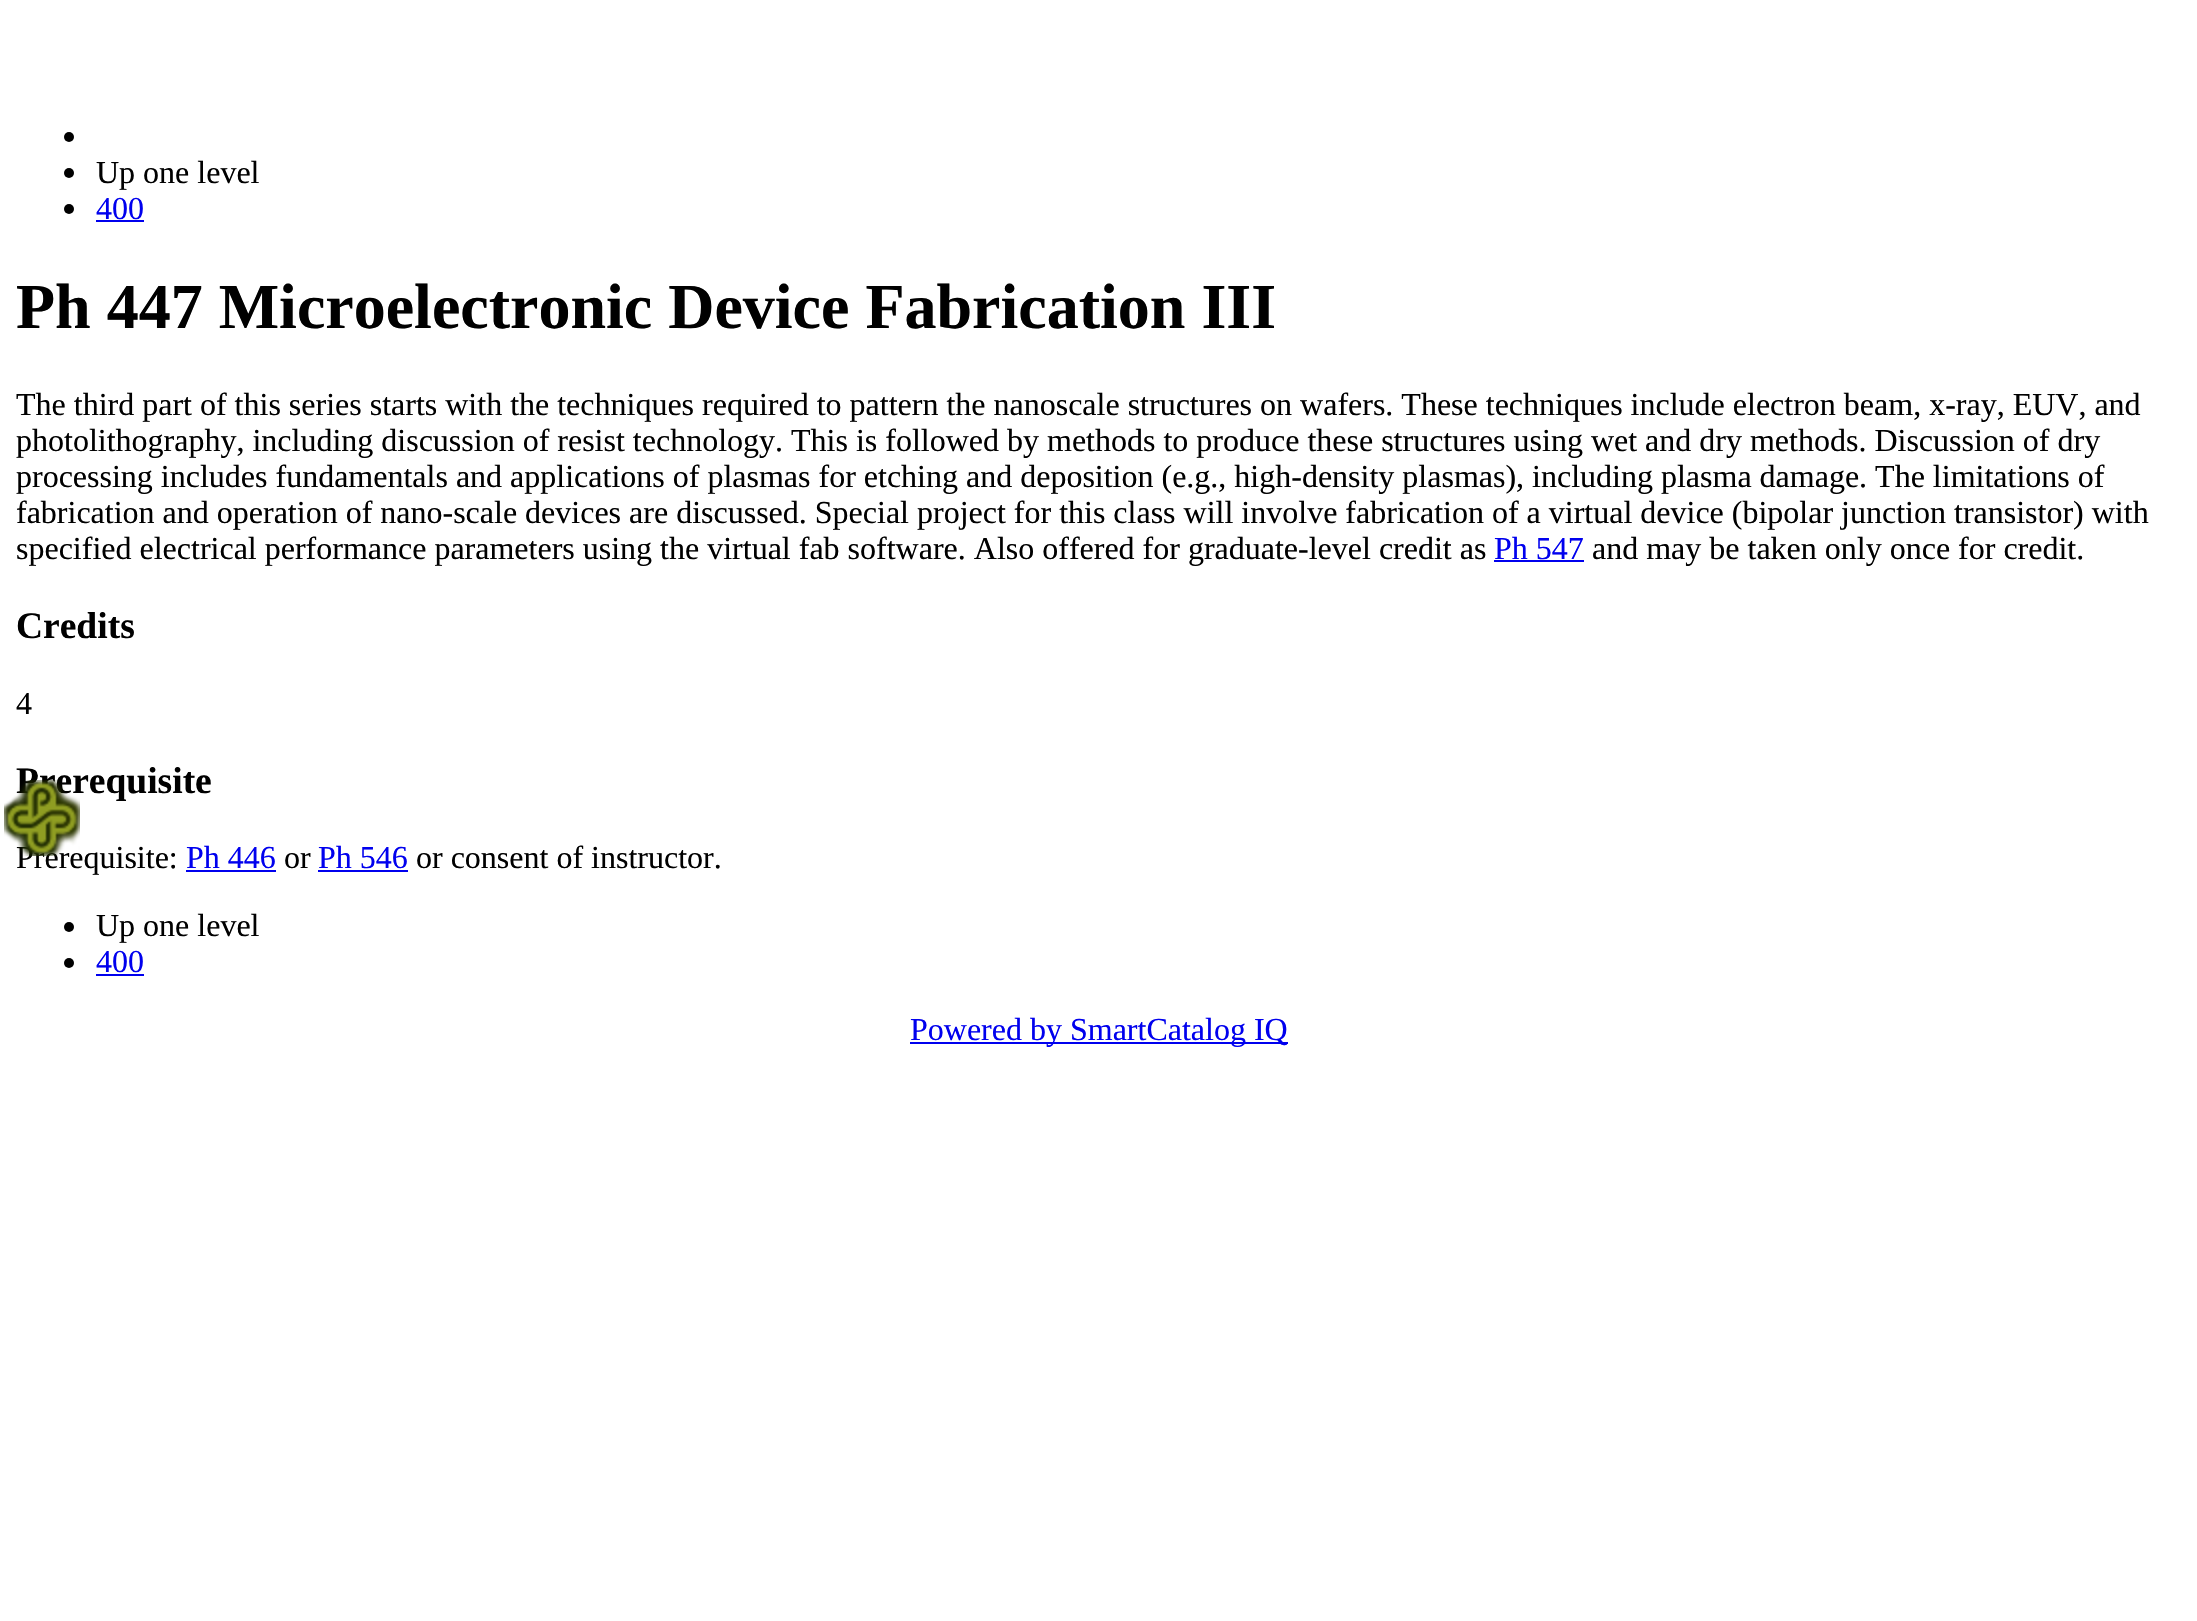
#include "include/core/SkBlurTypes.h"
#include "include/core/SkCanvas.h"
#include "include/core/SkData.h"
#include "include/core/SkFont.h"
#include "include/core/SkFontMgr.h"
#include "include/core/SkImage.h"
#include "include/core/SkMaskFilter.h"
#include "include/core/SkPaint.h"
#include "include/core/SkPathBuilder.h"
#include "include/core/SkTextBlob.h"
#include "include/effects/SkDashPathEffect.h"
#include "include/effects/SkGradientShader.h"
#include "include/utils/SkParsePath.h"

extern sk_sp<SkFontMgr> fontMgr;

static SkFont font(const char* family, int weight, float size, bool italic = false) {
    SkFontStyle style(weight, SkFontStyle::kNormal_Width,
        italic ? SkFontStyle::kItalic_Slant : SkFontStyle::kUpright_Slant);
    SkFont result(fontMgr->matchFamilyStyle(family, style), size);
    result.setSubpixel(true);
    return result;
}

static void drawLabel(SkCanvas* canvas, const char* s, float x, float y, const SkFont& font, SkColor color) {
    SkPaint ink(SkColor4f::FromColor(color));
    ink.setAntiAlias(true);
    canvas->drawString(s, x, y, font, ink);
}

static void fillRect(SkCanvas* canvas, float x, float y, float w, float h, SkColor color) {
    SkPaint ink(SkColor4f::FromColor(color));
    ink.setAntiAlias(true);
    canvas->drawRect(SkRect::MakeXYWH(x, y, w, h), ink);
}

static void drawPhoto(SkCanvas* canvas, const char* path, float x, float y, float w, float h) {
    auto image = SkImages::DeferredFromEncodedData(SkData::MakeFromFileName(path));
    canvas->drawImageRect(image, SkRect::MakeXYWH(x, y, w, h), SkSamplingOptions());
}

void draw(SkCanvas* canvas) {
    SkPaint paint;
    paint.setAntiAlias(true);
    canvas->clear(0xFFFFFFFF);
    paint.setColor(0xFF000000);
    canvas->drawCircle(69, 137, 5, paint);
    canvas->drawCircle(69, 173, 5, paint);
    SkFont font1 = font("Liberation Serif", 400, 32);
    drawLabel(canvas, "Up one level", 96, 183, font1, 0xFF000000);
    canvas->drawCircle(69, 209, 5, paint);
    drawLabel(canvas, "400", 96, 219, font1, 0xFF0000EE);
    fillRect(canvas, 96, 220, 48, 2, 0xFF0000EE);
    SkFont font2 = font("Liberation Serif", 700, 37.5f);
    drawLabel(canvas, "Prerequisite", 16, 793, font2, 0xFF000000);
    drawLabel(canvas, "Prerequisite:", 16, 868, font1, 0xFF000000);
    drawPhoto(canvas, "assets/img1.png", 4, 780, 76, 76);
    SkFont font3 = font("Liberation Serif", 700, 64);
    drawLabel(canvas, "Ph 447 Microelectronic Device Fabrication III", 16, 328, font3, 0xFF000000);
    drawLabel(canvas, "The third part of this series starts with the techniques required to pattern the nanoscale structures on wafers. These techniques include electron beam, x-ray, EUV, and", 16, 415, font1, 0xFF000000);
    drawLabel(canvas, "photolithography, including discussion of resist technology. This is followed by methods to produce these structures using wet and dry methods. Discussion of dry", 16, 451, font1, 0xFF000000);
    drawLabel(canvas, "processing includes fundamentals and applications of plasmas for etching and deposition (e.g., high-density plasmas), including plasma damage. The limitations of", 16, 487, font1, 0xFF000000);
    drawLabel(canvas, "fabrication and operation of nano-scale devices are discussed. Special project for this class will involve fabrication of a virtual device (bipolar junction transistor) with", 16, 523, font1, 0xFF000000);
    drawLabel(canvas, "specified electrical performance parameters using the virtual fab software. Also offered for graduate-level credit as", 16, 559, font1, 0xFF000000);
    drawLabel(canvas, "Ph 547", 1494, 559, font1, 0xFF0000EE);
    fillRect(canvas, 1494, 560, 90, 2, 0xFF0000EE);
    drawLabel(canvas, "and may be taken only once for credit.", 1592, 559, font1, 0xFF000000);
    drawLabel(canvas, "Credits", 16, 638, font2, 0xFF000000);
    drawLabel(canvas, "4", 16, 714, font1, 0xFF000000);
    drawLabel(canvas, "Ph 446", 186, 868, font1, 0xFF0000EE);
    fillRect(canvas, 186, 870, 90, 2, 0xFF0000EE);
    drawLabel(canvas, "or", 284, 868, font1, 0xFF000000);
    drawLabel(canvas, "Ph 546", 318, 868, font1, 0xFF0000EE);
    fillRect(canvas, 318, 870, 90, 2, 0xFF0000EE);
    drawLabel(canvas, "or consent of instructor.", 416, 868, font1, 0xFF000000);
    canvas->drawCircle(69, 927, 5, paint);
    drawLabel(canvas, "Up one level", 96, 936, font1, 0xFF000000);
    canvas->drawCircle(69, 963, 5, paint);
    drawLabel(canvas, "400", 96, 972, font1, 0xFF0000EE);
    fillRect(canvas, 96, 974, 48, 2, 0xFF0000EE);
    fillRect(canvas, 910, 1042, 378, 2, 0xFF0000EE);
    drawLabel(canvas, "Powered by SmartCatalog IQ", 910, 1040, font1, 0xFF0000EE);
}
